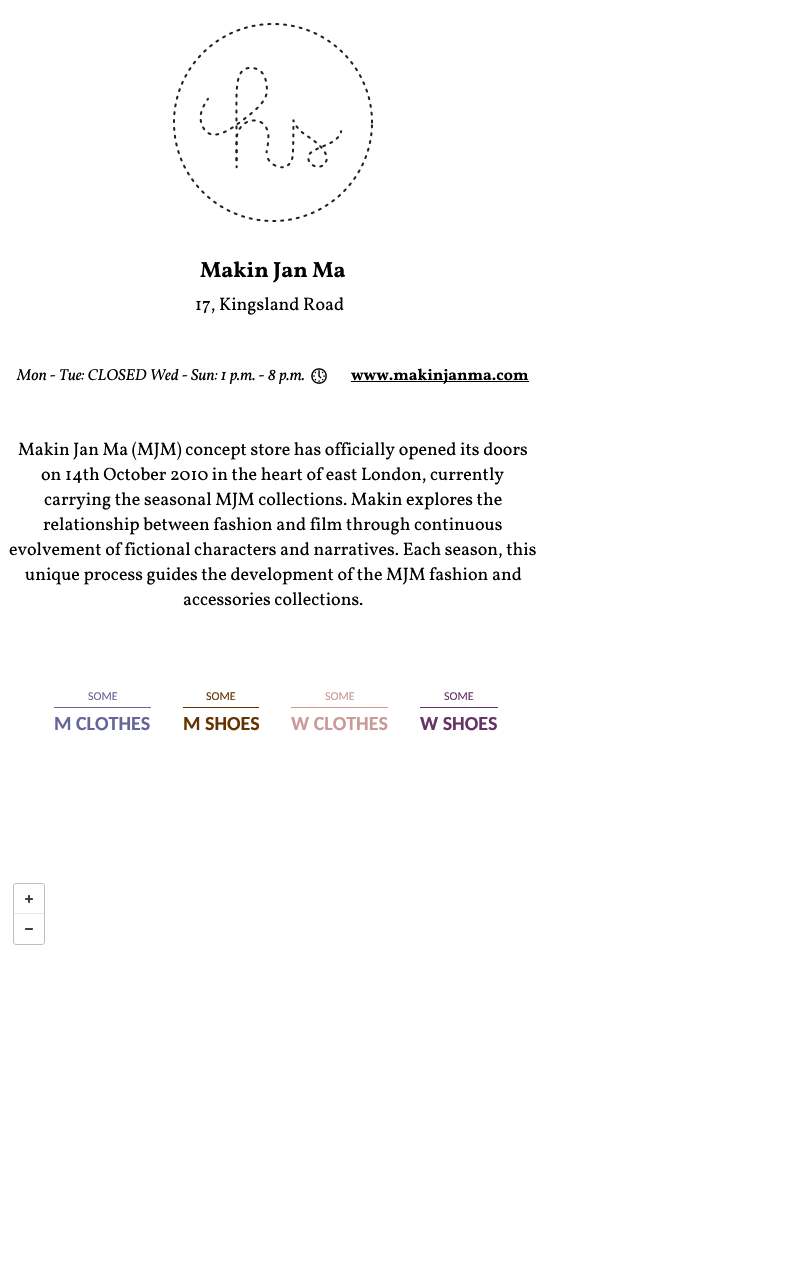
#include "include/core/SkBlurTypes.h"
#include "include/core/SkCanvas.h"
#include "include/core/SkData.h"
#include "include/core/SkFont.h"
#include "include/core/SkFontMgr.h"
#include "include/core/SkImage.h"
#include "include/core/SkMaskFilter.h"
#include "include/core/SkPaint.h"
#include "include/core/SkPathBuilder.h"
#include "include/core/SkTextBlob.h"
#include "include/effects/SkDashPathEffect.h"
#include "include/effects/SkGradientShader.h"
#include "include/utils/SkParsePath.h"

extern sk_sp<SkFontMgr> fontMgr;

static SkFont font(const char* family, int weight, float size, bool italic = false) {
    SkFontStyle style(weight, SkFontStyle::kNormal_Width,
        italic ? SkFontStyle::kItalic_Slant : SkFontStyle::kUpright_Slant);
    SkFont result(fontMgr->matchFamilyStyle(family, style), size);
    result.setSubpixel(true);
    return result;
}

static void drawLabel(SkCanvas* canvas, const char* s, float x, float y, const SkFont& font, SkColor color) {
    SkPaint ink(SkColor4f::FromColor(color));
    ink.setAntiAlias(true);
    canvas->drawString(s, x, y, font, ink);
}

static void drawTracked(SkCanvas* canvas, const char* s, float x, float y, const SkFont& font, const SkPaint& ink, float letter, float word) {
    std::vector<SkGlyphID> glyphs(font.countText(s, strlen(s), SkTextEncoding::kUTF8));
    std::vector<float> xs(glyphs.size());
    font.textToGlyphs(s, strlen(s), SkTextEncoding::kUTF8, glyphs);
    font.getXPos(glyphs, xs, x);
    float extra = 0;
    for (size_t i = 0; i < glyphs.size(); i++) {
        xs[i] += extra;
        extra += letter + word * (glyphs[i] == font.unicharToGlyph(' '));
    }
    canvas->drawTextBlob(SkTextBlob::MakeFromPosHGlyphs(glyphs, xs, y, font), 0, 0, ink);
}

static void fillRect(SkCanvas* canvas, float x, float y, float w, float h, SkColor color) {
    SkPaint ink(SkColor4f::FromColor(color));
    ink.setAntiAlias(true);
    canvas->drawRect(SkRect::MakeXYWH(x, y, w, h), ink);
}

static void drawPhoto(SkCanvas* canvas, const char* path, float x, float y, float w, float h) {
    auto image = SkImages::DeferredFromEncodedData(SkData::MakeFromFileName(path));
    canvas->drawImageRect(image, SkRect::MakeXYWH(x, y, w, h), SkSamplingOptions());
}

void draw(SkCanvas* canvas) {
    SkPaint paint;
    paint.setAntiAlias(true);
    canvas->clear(0xFFFFFFFF);
    drawPhoto(canvas, "assets/img1.png", 173, 23, 200, 199);
    SkFont font1 = font("Vollkorn", 700, 22);
    drawLabel(canvas, "Makin Jan Ma", 200, 277, font1, 0xFF000000);
    SkFont font2 = font("Vollkorn", 400, 18);
    drawLabel(canvas, "17, Kingsland Road", 195, 310, font2, 0xFF000000);
    SkFont font3 = font("Vollkorn", 400, 16, true);
    paint.setColor(0xFF000000);
    drawTracked(canvas, "Mon - Tue: CLOSED Wed - Sun: 1 p.m. - 8 p.m.", 17, 380, font3, paint, 0, 0.25f);
    drawPhoto(canvas, "assets/img2.png", 311, 368, 16, 16);
    fillRect(canvas, 351, 381, 178, 1, 0xFF000000);
    SkFont font4 = font("Vollkorn", 700, 16);
    drawLabel(canvas, "www.makinjanma.com", 351, 380, font4, 0xFF000000);
    drawLabel(canvas, "Makin Jan Ma (MJM) concept store has officially opened its doors", 18, 455, font2, 0xFF000000);
    drawLabel(canvas, "on 14th October 2010 in the heart of east London, currently", 41, 480, font2, 0xFF000000);
    drawLabel(canvas, "carrying the seasonal MJM collections. Makin explores the", 44, 505, font2, 0xFF000000);
    drawLabel(canvas, "relationship between fashion and film through continuous", 43, 530, font2, 0xFF000000);
    drawLabel(canvas, "evolvement of fictional characters and narratives. Each season, this", 9, 555, font2, 0xFF000000);
    drawLabel(canvas, "unique process guides the development of the MJM fashion and", 25, 580, font2, 0xFF000000);
    drawLabel(canvas, "accessories collections.", 183, 605, font2, 0xFF000000);
    SkFont font5 = font("Carlito", 400, 12);
    drawLabel(canvas, "SOME", 88, 700, font5, 0xFF666699);
    fillRect(canvas, 54, 707, 97, 1, 0xFF666699);
    SkFont font6 = font("Carlito", 700, 20);
    drawLabel(canvas, "M CLOTHES", 54, 730, font6, 0xFF666699);
    drawLabel(canvas, "SOME", 206, 700, font5, 0xFF663300);
    fillRect(canvas, 183, 707, 76, 1, 0xFF663300);
    drawLabel(canvas, "M SHOES", 183, 730, font6, 0xFF663300);
    drawLabel(canvas, "SOME", 325, 700, font5, 0xFFCC9999);
    fillRect(canvas, 291, 707, 97, 1, 0xFFCC9999);
    drawLabel(canvas, "W CLOTHES", 291, 730, font6, 0xFFCC9999);
    drawLabel(canvas, "SOME", 444, 700, font5, 0xFF663366);
    fillRect(canvas, 420, 707, 78, 1, 0xFF663366);
    drawLabel(canvas, "W SHOES", 420, 730, font6, 0xFF663366);
    paint.setStroke(true);
    paint.setStrokeWidth(1);
    paint.setColor(0xFFBFBFBF);
    canvas->drawRoundRect(SkRect::MakeXYWH(13.5f, 883.5f, 31, 61), 2.5f, 2.5f, paint);
    drawPhoto(canvas, "assets/img3.png", 25, 895, 8, 8);
    fillRect(canvas, 14, 913, 30, 1, 0xFFE6E6E6);
    drawPhoto(canvas, "assets/img4.png", 25, 928, 8, 2);
}
